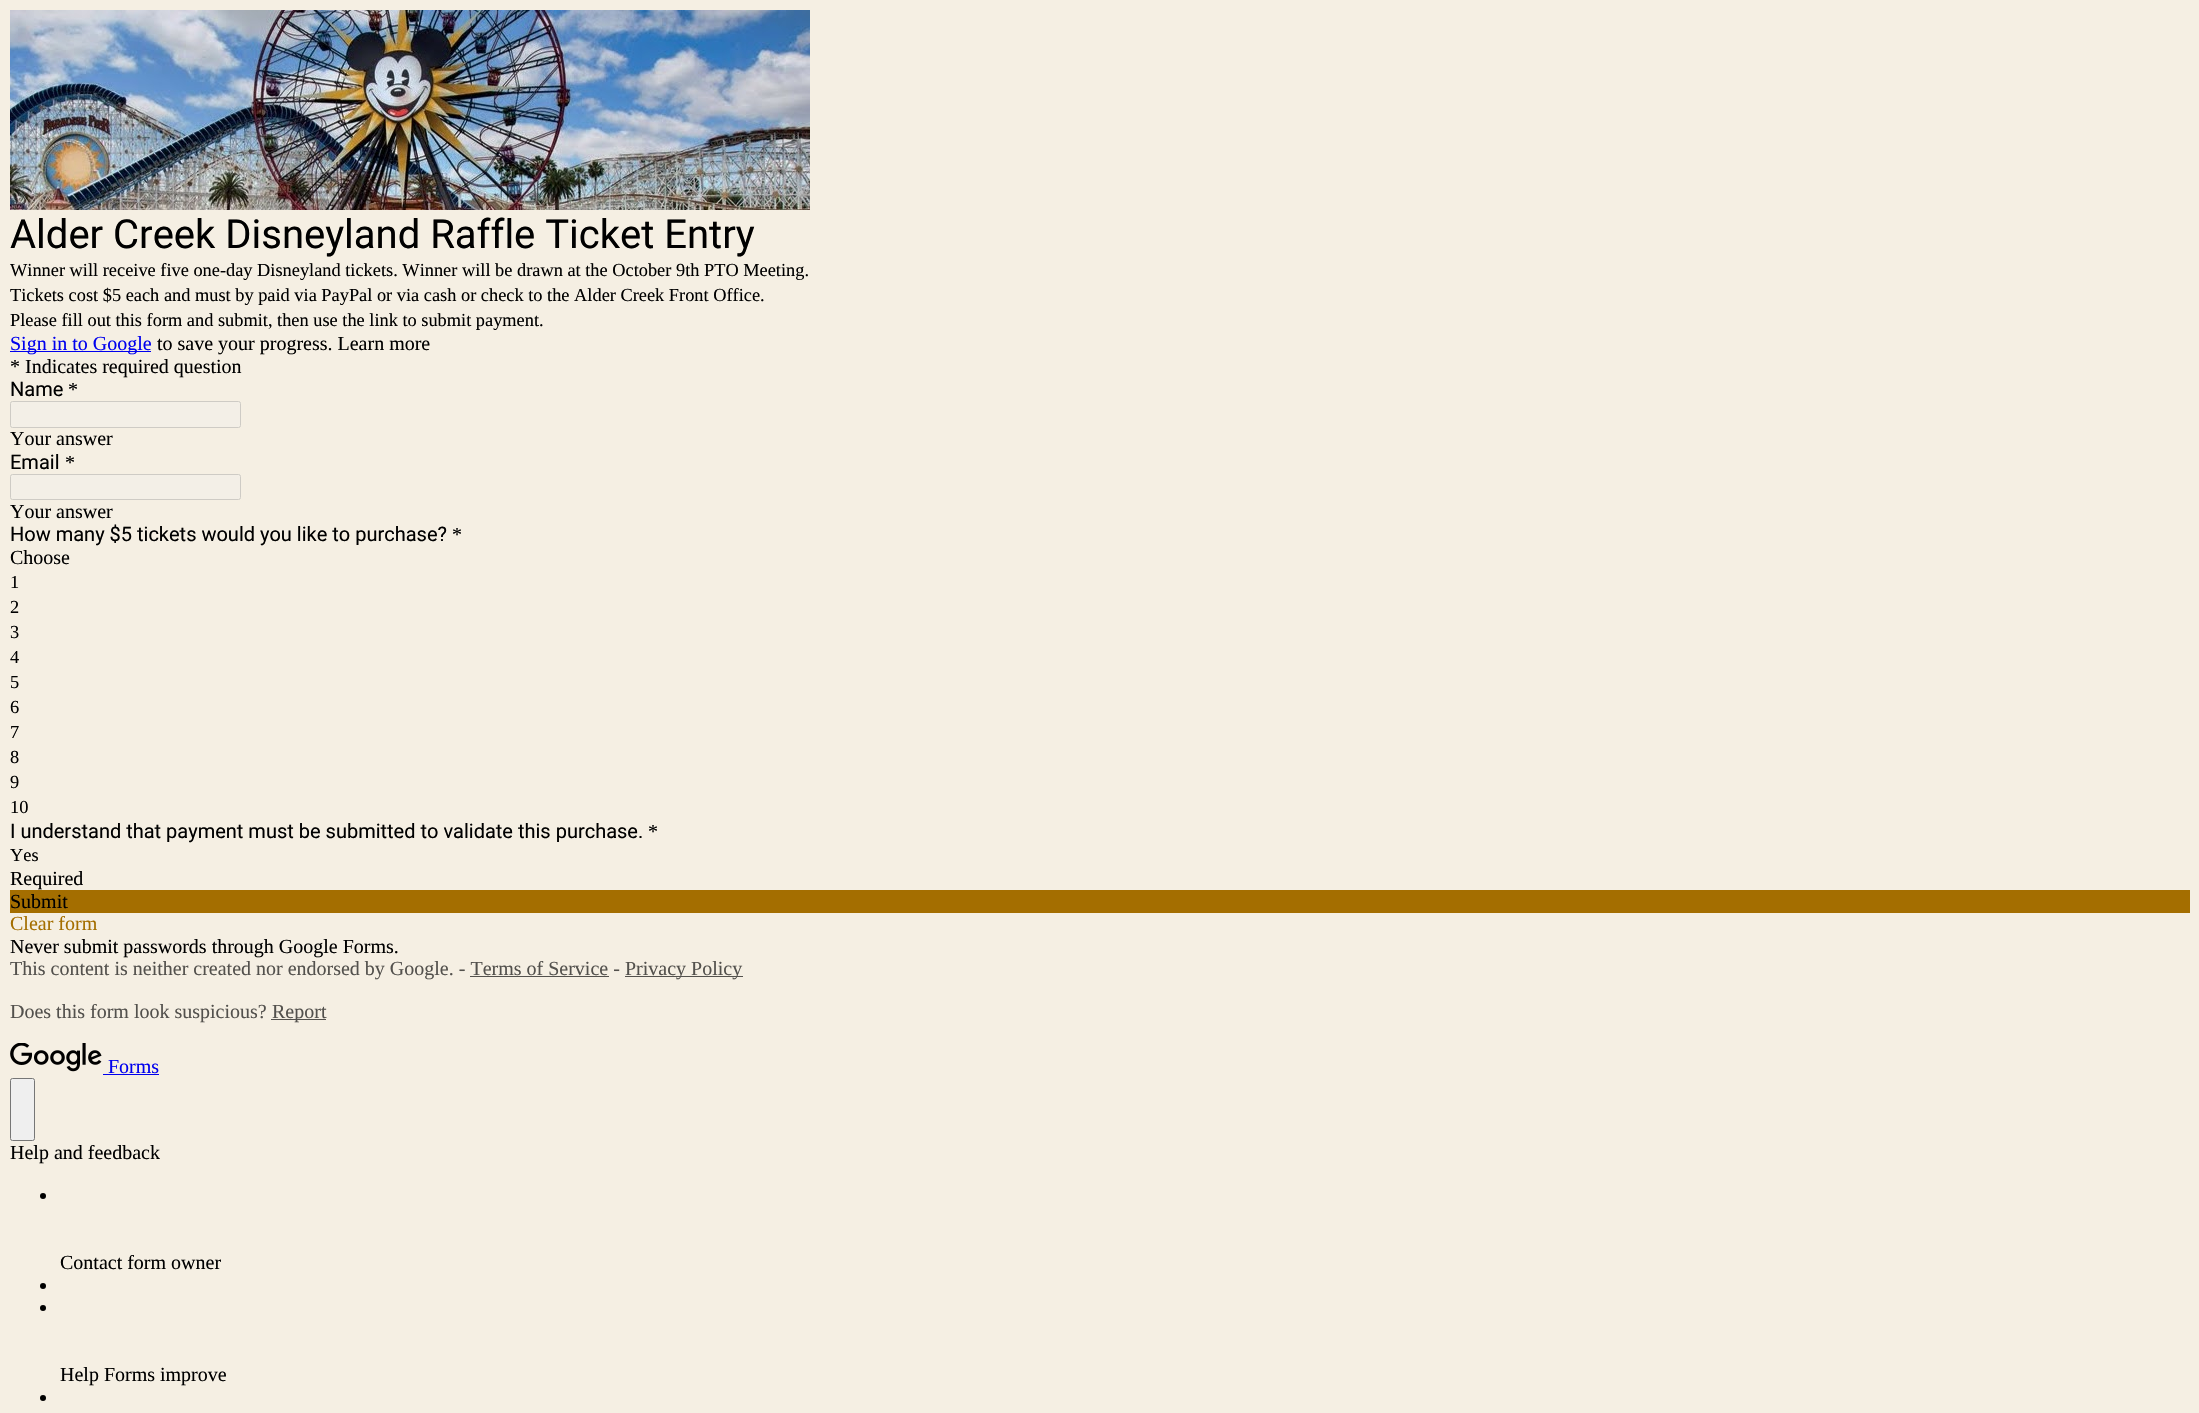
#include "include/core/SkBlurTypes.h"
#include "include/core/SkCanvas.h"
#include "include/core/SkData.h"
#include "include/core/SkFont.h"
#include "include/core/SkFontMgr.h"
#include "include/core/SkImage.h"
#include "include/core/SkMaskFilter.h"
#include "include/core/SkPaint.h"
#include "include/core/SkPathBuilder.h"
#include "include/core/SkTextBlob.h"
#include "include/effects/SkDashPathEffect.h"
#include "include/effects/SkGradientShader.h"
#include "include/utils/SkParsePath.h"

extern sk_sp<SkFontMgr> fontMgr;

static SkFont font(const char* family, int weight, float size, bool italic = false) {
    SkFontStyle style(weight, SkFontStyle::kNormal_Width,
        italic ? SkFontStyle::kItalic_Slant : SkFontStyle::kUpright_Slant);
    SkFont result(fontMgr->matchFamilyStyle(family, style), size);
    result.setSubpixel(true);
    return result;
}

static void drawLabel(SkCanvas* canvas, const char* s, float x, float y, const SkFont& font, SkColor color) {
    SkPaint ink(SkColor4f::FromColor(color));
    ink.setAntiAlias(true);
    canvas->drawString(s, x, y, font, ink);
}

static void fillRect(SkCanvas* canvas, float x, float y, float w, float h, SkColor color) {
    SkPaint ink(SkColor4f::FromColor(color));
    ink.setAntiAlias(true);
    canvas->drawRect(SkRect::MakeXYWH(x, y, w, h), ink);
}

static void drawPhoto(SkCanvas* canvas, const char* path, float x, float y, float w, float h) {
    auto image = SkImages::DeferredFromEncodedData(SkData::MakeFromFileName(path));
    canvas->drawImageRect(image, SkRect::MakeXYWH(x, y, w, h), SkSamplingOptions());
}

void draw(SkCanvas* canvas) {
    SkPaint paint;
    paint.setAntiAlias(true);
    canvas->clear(0xFFF5EFE3);
    drawPhoto(canvas, "assets/img1.png", 10, 10, 800, 200);
    SkFont font1 = font("Roboto", 400, 40);
    drawLabel(canvas, "Alder Creek Disneyland Raffle Ticket Entry", 10, 248, font1, 0xFF000000);
    SkFont font2 = font("Liberation Serif", 400, 18.35f);
    drawLabel(canvas, "Winner will receive five one-day Disneyland tickets. Winner will be drawn at the October 9th PTO Meeting.", 10, 276, font2, 0xFF000000);
    drawLabel(canvas, "Tickets cost $5 each and must by paid via PayPal or via cash or check to the Alder Creek Front Office.", 10, 301, font2, 0xFF000000);
    drawLabel(canvas, "Please fill out this form and submit, then use the link to submit payment.", 10, 326, font2, 0xFF000000);
    fillRect(canvas, 10, 351, 141, 1, 0xFF0000EE);
    SkFont font3 = font("Liberation Serif", 400, 20);
    drawLabel(canvas, "Sign in to Google", 10, 350, font3, 0xFF0000EE);
    drawLabel(canvas, "to save your progress. Learn more", 157, 350, font3, 0xFF000000);
    drawLabel(canvas, "* Indicates required question", 10, 373, font3, 0xFF000000);
    SkFont font4 = font("Roboto", 400, 20);
    drawLabel(canvas, "Name", 10, 396, font4, 0xFF000000);
    drawLabel(canvas, "*", 68, 396, font3, 0xFF000000);
    paint.setColor(0xFFF3EFE7);
    canvas->drawRoundRect(SkRect::MakeXYWH(10.5f, 401.5f, 230, 26), 2, 2, paint);
    paint.setStroke(true);
    paint.setStrokeWidth(1);
    paint.setColor(0xFFCECBC5);
    canvas->drawRoundRect(SkRect::MakeXYWH(10.5f, 401.5f, 230, 26), 2, 2, paint);
    drawLabel(canvas, "Your answer", 10, 445, font3, 0xFF000000);
    drawLabel(canvas, "Email", 10, 469, font4, 0xFF000000);
    drawLabel(canvas, "*", 65, 469, font3, 0xFF000000);
    paint.setStroke(false);
    paint.setColor(0xFFF3EFE7);
    canvas->drawRoundRect(SkRect::MakeXYWH(10.5f, 474.5f, 230, 25), 2, 2, paint);
    paint.setStroke(true);
    paint.setColor(0xFFCECBC5);
    canvas->drawRoundRect(SkRect::MakeXYWH(10.5f, 474.5f, 230, 25), 2, 2, paint);
    drawLabel(canvas, "Your answer", 10, 518, font3, 0xFF000000);
    drawLabel(canvas, "How many $5 tickets would you like to purchase?", 10, 541, font4, 0xFF000000);
    drawLabel(canvas, "*", 452, 541, font3, 0xFF000000);
    drawLabel(canvas, "Choose", 10, 564, font3, 0xFF000000);
    drawLabel(canvas, "1", 10, 588, font2, 0xFF000000);
    drawLabel(canvas, "2", 10, 613, font2, 0xFF000000);
    drawLabel(canvas, "3", 10, 638, font2, 0xFF000000);
    drawLabel(canvas, "4", 10, 663, font2, 0xFF000000);
    drawLabel(canvas, "5", 10, 688, font2, 0xFF000000);
    drawLabel(canvas, "6", 10, 713, font2, 0xFF000000);
    drawLabel(canvas, "7", 10, 738, font2, 0xFF000000);
    drawLabel(canvas, "8", 10, 763, font2, 0xFF000000);
    drawLabel(canvas, "9", 10, 788, font2, 0xFF000000);
    drawLabel(canvas, "10", 10, 813, font2, 0xFF000000);
    drawLabel(canvas, "I understand that payment must be submitted to validate this purchase.", 10, 838, font4, 0xFF000000);
    drawLabel(canvas, "*", 648, 838, font3, 0xFF000000);
    drawLabel(canvas, "Yes", 10, 861, font2, 0xFF000000);
    drawLabel(canvas, "Required", 10, 885, font3, 0xFF000000);
    fillRect(canvas, 10, 890, 2180, 23, 0xFFA46E00);
    drawLabel(canvas, "Submit", 10, 908, font3, 0xFF000000);
    drawLabel(canvas, "Clear form", 10, 930, font3, 0xFFA46E00);
    drawLabel(canvas, "Never submit passwords through Google Forms.", 10, 953, font3, 0xFF000000);
    drawLabel(canvas, "This content is neither created nor endorsed by Google. - Terms of Service -", 10, 975, font3, 0xFF53514D);
    fillRect(canvas, 625, 976, 118, 1, 0xFF53514D);
    drawLabel(canvas, "Privacy Policy", 625, 975, font3, 0xFF53514D);
    fillRect(canvas, 470, 976, 139, 1, 0xFF53514D);
    drawLabel(canvas, "Does this form look suspicious?", 10, 1018, font3, 0xFF53514D);
    fillRect(canvas, 271, 1019, 55, 1, 0xFF53514D);
    drawLabel(canvas, "Report", 272, 1018, font3, 0xFF53514D);
    drawPhoto(canvas, "assets/img2.png", 10, 1043, 92, 29);
    drawLabel(canvas, "Forms", 108, 1073, font3, 0xFF0000EE);
    fillRect(canvas, 103, 1074, 56, 1, 0xFF0000EE);
    paint.setStroke(false);
    paint.setColor(0xFFEFEFEF);
    canvas->drawRoundRect(SkRect::MakeXYWH(10.5f, 1078.5f, 24, 62), 2, 2, paint);
    paint.setStroke(true);
    paint.setColor(0xFF767676);
    canvas->drawRoundRect(SkRect::MakeXYWH(10.5f, 1078.5f, 24, 62), 2, 2, paint);
    drawLabel(canvas, "Help and feedback", 10, 1159, font3, 0xFF000000);
    paint.setStroke(false);
    paint.setColor(0xFF000000);
    canvas->drawCircle(43, 1196, 3, paint);
    drawLabel(canvas, "Contact form owner", 60, 1269, font3, 0xFF000000);
    canvas->drawCircle(43, 1286, 3, paint);
    canvas->drawCircle(43, 1308, 3, paint);
    drawLabel(canvas, "Help Forms improve", 60, 1381, font3, 0xFF000000);
    canvas->drawCircle(43, 1398, 3, paint);
}
